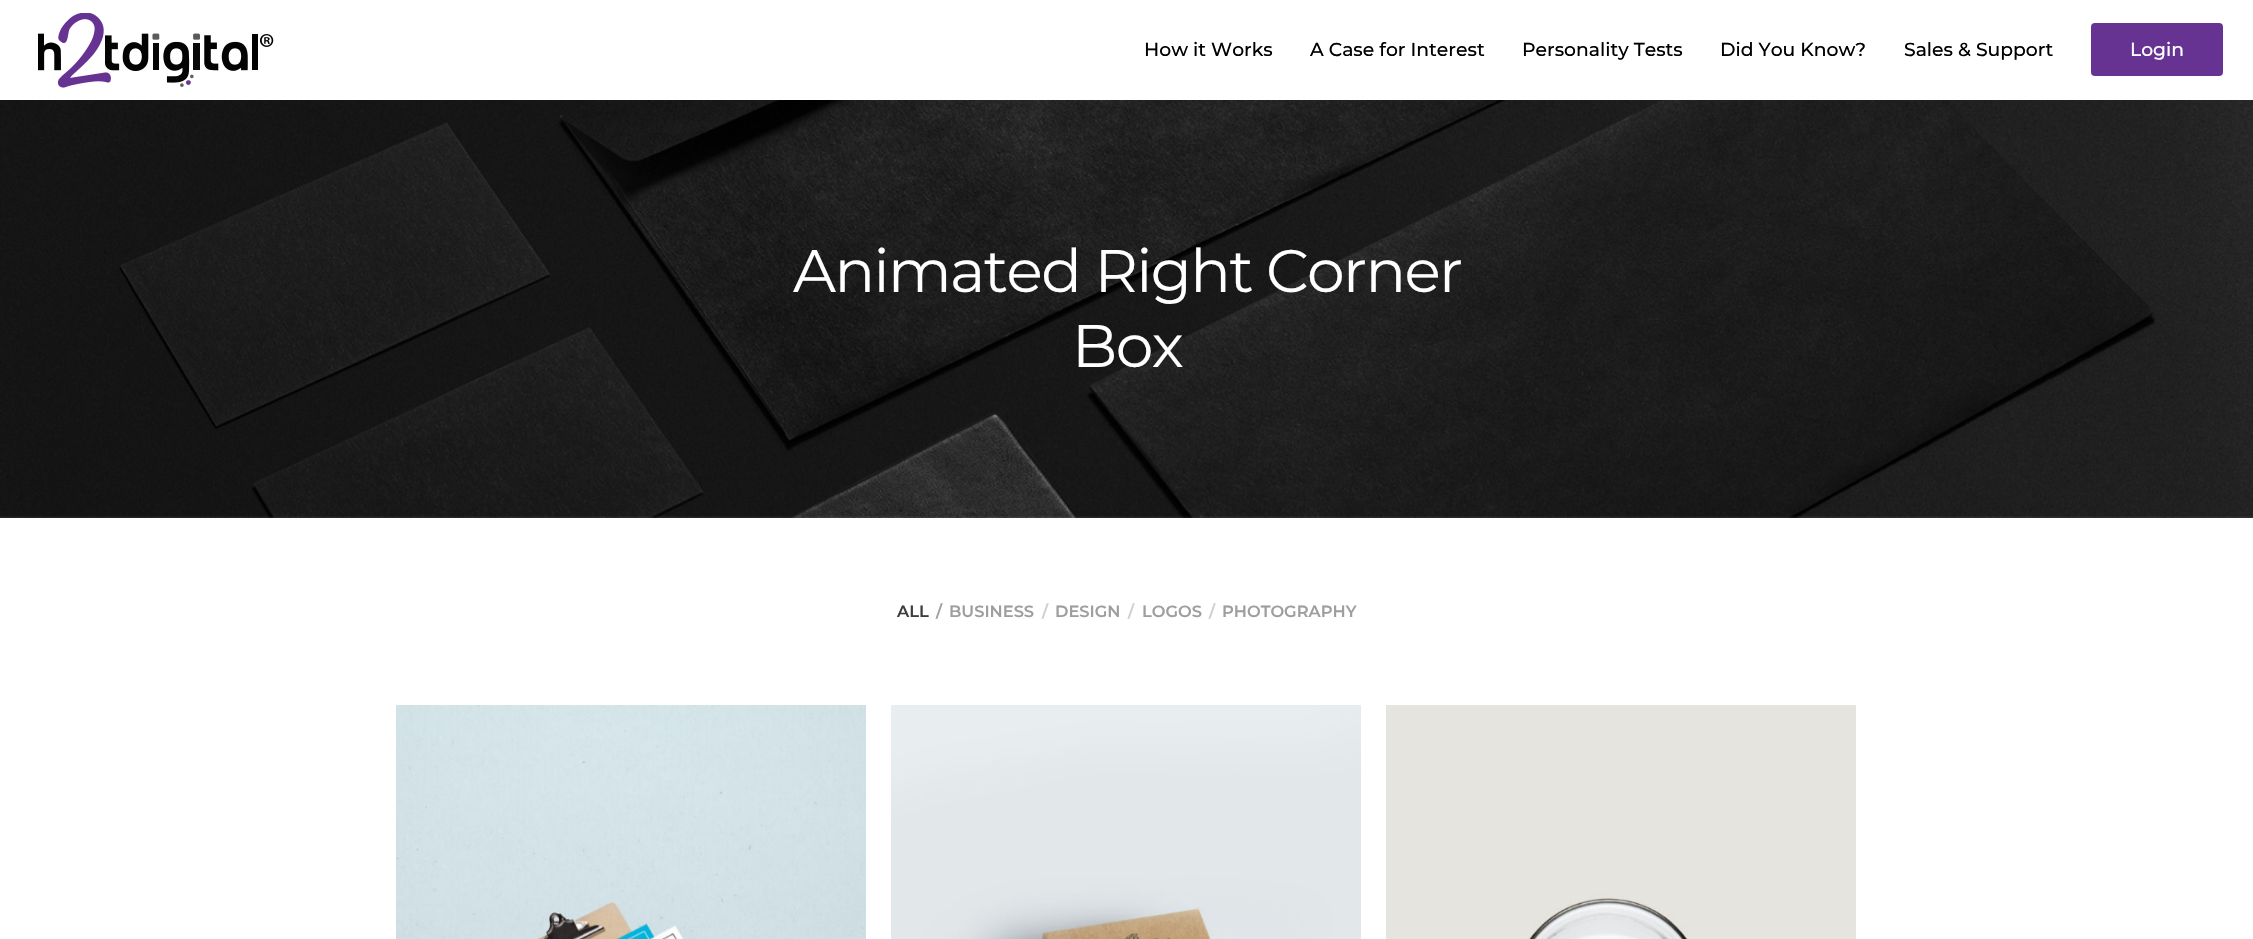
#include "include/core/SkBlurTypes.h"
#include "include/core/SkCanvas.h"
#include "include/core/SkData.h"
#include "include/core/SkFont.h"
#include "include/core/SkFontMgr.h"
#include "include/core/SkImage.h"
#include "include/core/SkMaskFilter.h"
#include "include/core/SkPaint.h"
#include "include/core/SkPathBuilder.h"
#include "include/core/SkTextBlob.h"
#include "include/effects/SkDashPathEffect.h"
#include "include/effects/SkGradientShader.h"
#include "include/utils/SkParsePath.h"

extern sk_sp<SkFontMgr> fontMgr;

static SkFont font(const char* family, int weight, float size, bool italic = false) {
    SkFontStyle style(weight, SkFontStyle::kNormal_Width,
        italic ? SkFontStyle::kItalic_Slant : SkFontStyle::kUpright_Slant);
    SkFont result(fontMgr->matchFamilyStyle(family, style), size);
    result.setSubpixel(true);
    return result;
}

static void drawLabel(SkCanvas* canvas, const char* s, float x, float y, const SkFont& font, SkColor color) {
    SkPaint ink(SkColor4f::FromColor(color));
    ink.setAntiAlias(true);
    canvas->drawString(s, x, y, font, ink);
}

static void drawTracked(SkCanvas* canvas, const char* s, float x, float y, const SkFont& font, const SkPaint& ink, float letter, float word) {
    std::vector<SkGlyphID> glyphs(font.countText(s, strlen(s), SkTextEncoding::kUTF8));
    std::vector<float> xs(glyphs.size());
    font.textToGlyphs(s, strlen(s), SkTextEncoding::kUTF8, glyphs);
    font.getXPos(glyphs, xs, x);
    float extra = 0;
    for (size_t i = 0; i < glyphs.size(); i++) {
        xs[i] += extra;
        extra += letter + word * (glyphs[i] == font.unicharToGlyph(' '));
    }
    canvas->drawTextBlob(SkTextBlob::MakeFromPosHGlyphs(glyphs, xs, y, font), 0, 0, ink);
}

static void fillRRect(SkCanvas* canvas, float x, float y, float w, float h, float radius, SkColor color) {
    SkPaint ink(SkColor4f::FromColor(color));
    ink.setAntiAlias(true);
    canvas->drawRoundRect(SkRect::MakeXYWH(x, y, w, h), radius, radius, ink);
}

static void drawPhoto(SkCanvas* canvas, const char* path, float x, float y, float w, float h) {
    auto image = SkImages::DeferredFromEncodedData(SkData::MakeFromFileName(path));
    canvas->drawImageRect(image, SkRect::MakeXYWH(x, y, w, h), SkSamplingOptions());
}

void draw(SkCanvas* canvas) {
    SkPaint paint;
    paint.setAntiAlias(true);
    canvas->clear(0xFFFFFFFF);
    drawPhoto(canvas, "assets/img1.png", 38, 13, 236, 75);
    SkFont font1 = font("Montserrat", 500, 18.75f);
    drawLabel(canvas, "How it Works", 1144, 56, font1, 0xFF000000);
    drawLabel(canvas, "A Case for Interest", 1310, 56, font1, 0xFF000000);
    drawLabel(canvas, "Personality Tests", 1522, 56, font1, 0xFF000000);
    drawLabel(canvas, "Did You Know?", 1720, 56, font1, 0xFF000000);
    drawLabel(canvas, "Sales & Support", 1904, 56, font1, 0xFF000000);
    fillRRect(canvas, 2091, 23, 132, 53, 4, 0xFF663393);
    drawLabel(canvas, "Login", 2130, 56, font1, 0xFFFFFFFF);
    drawPhoto(canvas, "assets/img2.png", 0, 100, 2253, 418);
    SkFont font2 = font("Montserrat", 400, 60);
    paint.setColor(0xFFFFFFFF);
    drawTracked(canvas, "Animated Right Corner", 793, 292, font2, paint, -1.6f, 0);
    drawTracked(canvas, "Box", 1072, 367, font2, paint, -1.6f, 0);
    SkFont font3 = font("Montserrat", 600, 16.25f);
    drawLabel(canvas, "ALL", 897, 617, font3, 0xFF3D3D3D);
    drawLabel(canvas, "/", 936, 617, font3, 0xFF9E9E9E);
    drawLabel(canvas, "BUSINESS", 949, 617, font3, 0xFF9E9E9E);
    drawLabel(canvas, "/", 1042, 617, font3, 0xFFCFCFCF);
    drawLabel(canvas, "DESIGN", 1055, 617, font3, 0xFF9E9E9E);
    drawLabel(canvas, "/", 1128, 617, font3, 0xFFCFCFCF);
    drawLabel(canvas, "LOGOS", 1142, 617, font3, 0xFF9E9E9E);
    drawLabel(canvas, "/", 1209, 617, font3, 0xFFCFCFCF);
    drawLabel(canvas, "PHOTOGRAPHY", 1222, 617, font3, 0xFF9E9E9E);
    drawPhoto(canvas, "assets/img3.png", 396, 705, 470, 234);
    drawPhoto(canvas, "assets/img4.png", 891, 705, 470, 234);
    drawPhoto(canvas, "assets/img5.png", 1386, 705, 470, 234);
}
